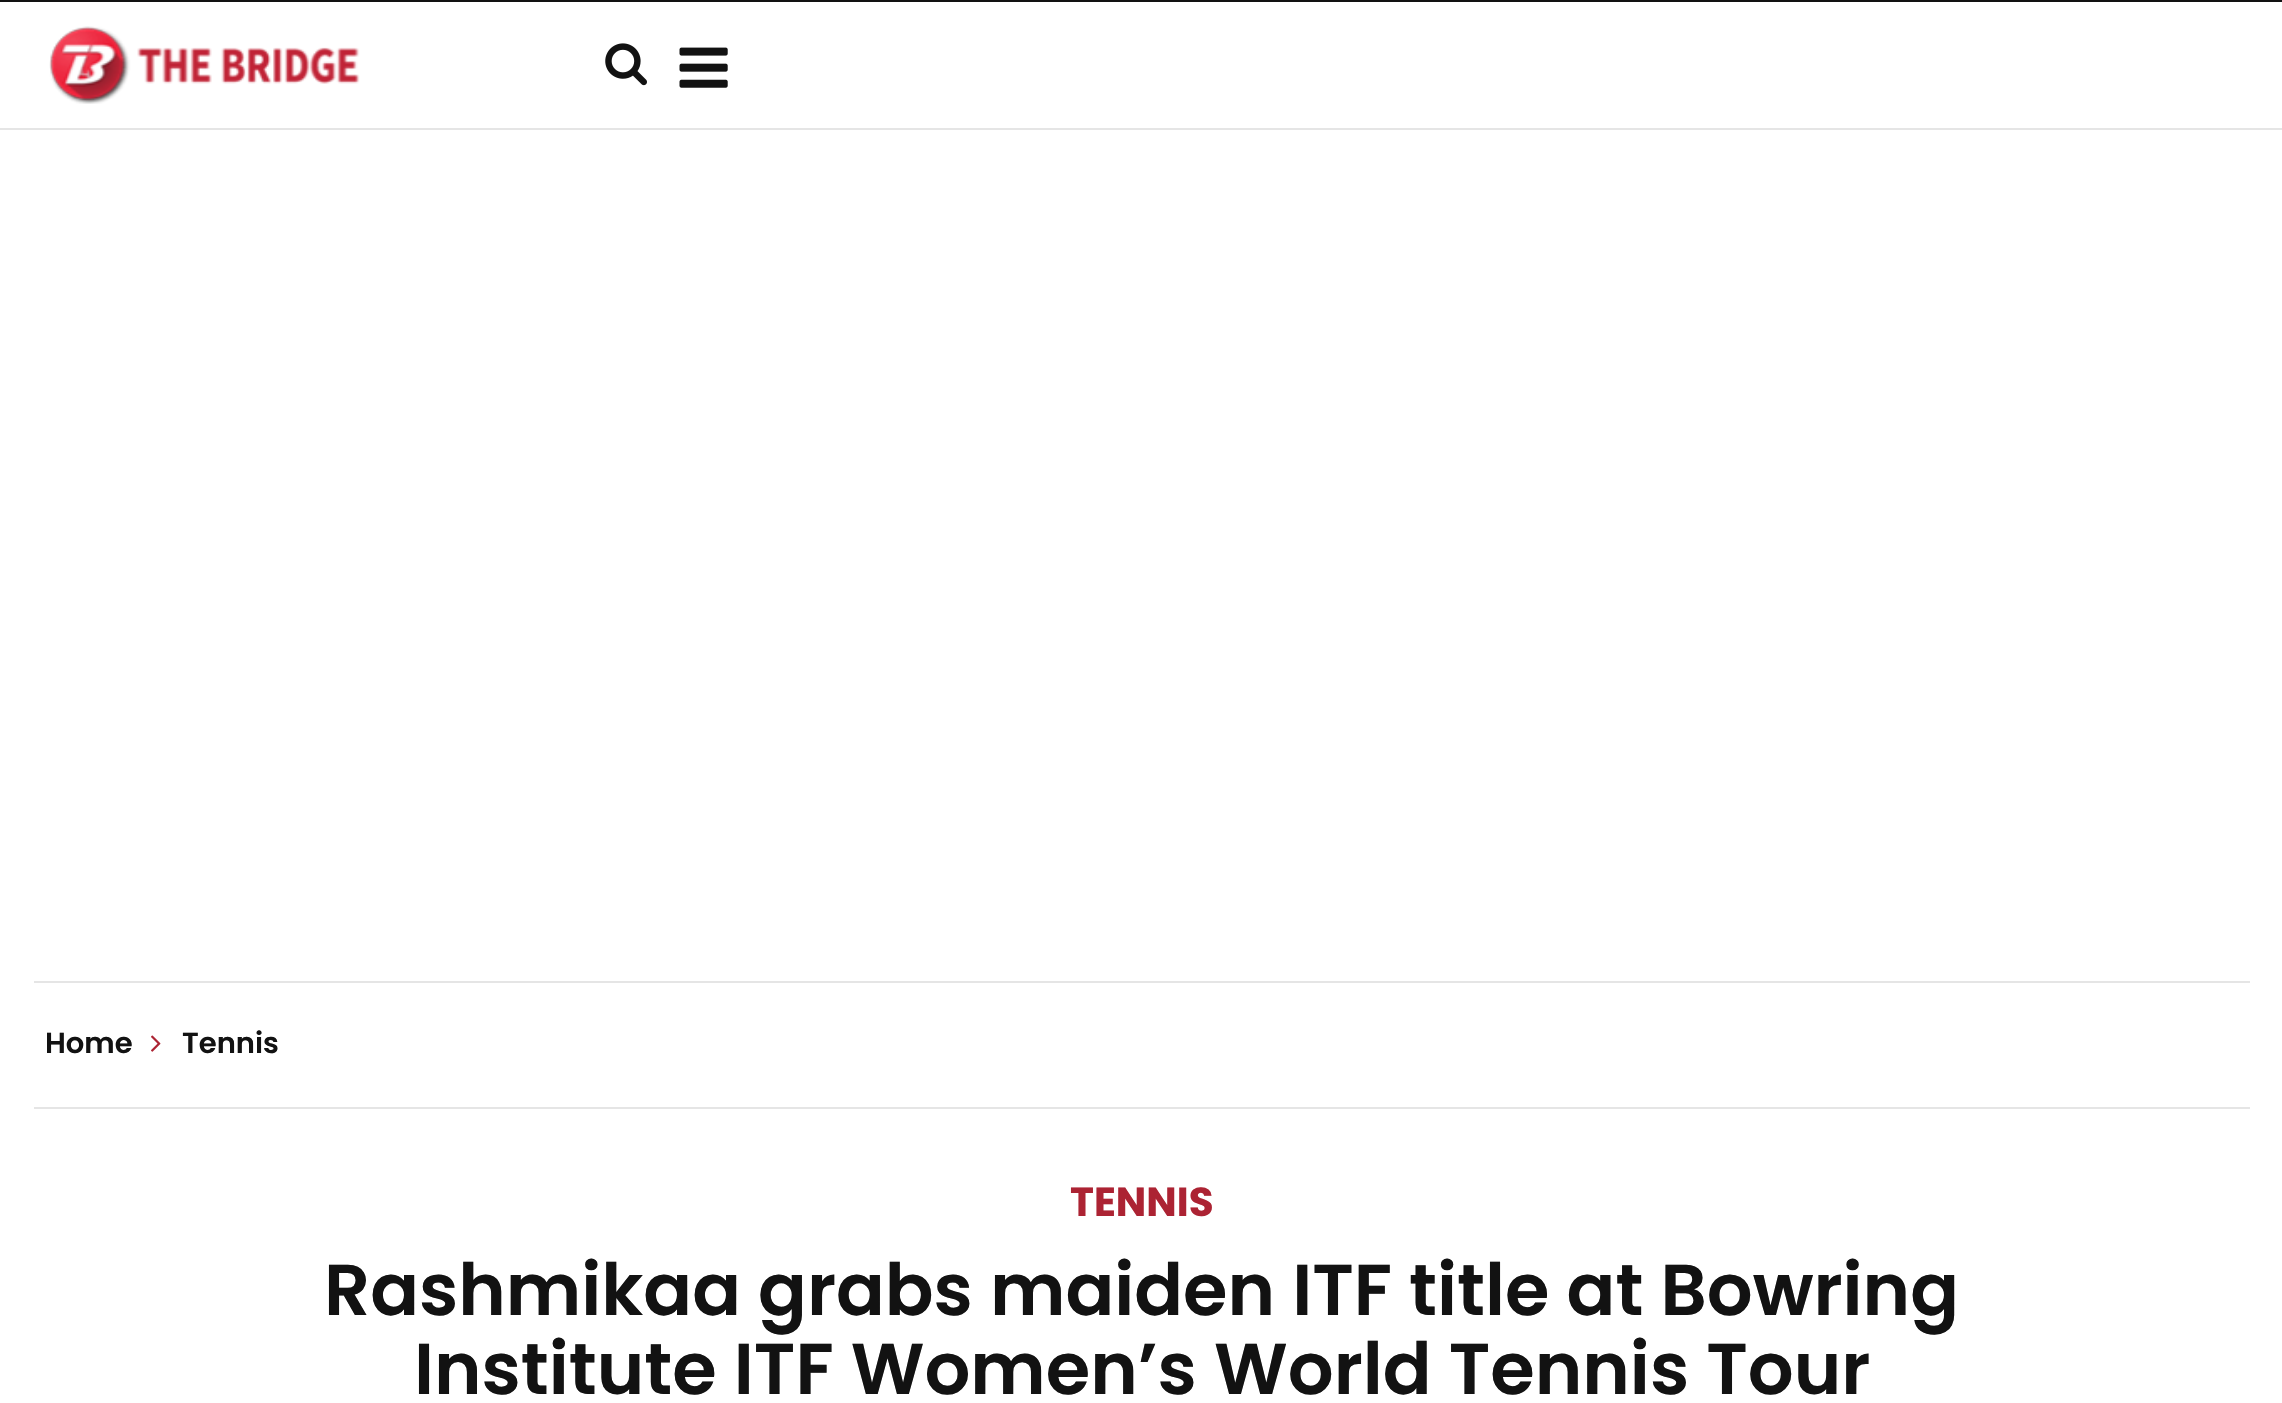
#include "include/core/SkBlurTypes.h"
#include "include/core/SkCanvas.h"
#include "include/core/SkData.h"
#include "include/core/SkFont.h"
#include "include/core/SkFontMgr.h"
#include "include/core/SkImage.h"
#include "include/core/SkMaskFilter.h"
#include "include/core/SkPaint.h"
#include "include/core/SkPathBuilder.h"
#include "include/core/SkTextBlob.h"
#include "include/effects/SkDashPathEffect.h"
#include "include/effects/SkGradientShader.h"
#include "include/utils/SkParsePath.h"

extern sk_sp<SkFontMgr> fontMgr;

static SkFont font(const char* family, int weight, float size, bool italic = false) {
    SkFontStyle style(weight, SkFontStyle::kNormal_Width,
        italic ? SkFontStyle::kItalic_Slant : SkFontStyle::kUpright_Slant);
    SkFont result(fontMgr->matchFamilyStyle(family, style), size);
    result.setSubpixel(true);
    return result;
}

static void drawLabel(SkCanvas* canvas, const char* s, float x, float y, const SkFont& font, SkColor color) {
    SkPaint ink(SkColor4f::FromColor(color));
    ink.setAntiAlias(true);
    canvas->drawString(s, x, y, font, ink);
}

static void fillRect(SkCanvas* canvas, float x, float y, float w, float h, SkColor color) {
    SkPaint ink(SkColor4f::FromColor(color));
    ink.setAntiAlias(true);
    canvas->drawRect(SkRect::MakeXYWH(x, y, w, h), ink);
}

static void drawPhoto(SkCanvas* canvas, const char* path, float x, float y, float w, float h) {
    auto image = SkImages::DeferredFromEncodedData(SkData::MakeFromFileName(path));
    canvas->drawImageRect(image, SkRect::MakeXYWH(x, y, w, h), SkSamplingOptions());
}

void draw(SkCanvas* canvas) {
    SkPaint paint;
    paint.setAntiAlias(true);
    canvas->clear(0xFFFFFFFF);
    fillRect(canvas, 0, 0, 2282, 2, 0xFF121212);
    fillRect(canvas, 0, 128, 2282, 2, 0xFFE5E5E5);
    drawPhoto(canvas, "assets/img1.png", 49, 26, 311, 78);
    drawPhoto(canvas, "assets/img2.png", 605, 43, 42, 43);
    drawPhoto(canvas, "assets/img3.png", 679, 47, 49, 41);
    fillRect(canvas, 34, 981, 2216, 2, 0xFFE5E5E5);
    fillRect(canvas, 34, 1107, 2216, 2, 0xFFE5E5E5);
    SkFont font1 = font("Poppins", 600, 29);
    drawLabel(canvas, "Home", 45, 1053, font1, 0xFF121212);
    drawPhoto(canvas, "assets/img4.png", 151, 1035, 10, 17);
    drawLabel(canvas, "Tennis", 182, 1053, font1, 0xFF121212);
    SkFont font2 = font("Poppins", 700, 40.5f);
    drawLabel(canvas, "TENNIS", 1070, 1216, font2, 0xFFAC2333);
    SkFont font3 = font("Poppins", 600, 72);
    drawLabel(canvas, "Rashmikaa grabs maiden ITF title at Bowring", 324, 1315, font3, 0xFF121212);
    drawLabel(canvas, "Institute ITF Women’s World Tennis Tour", 414, 1394, font3, 0xFF121212);
}
